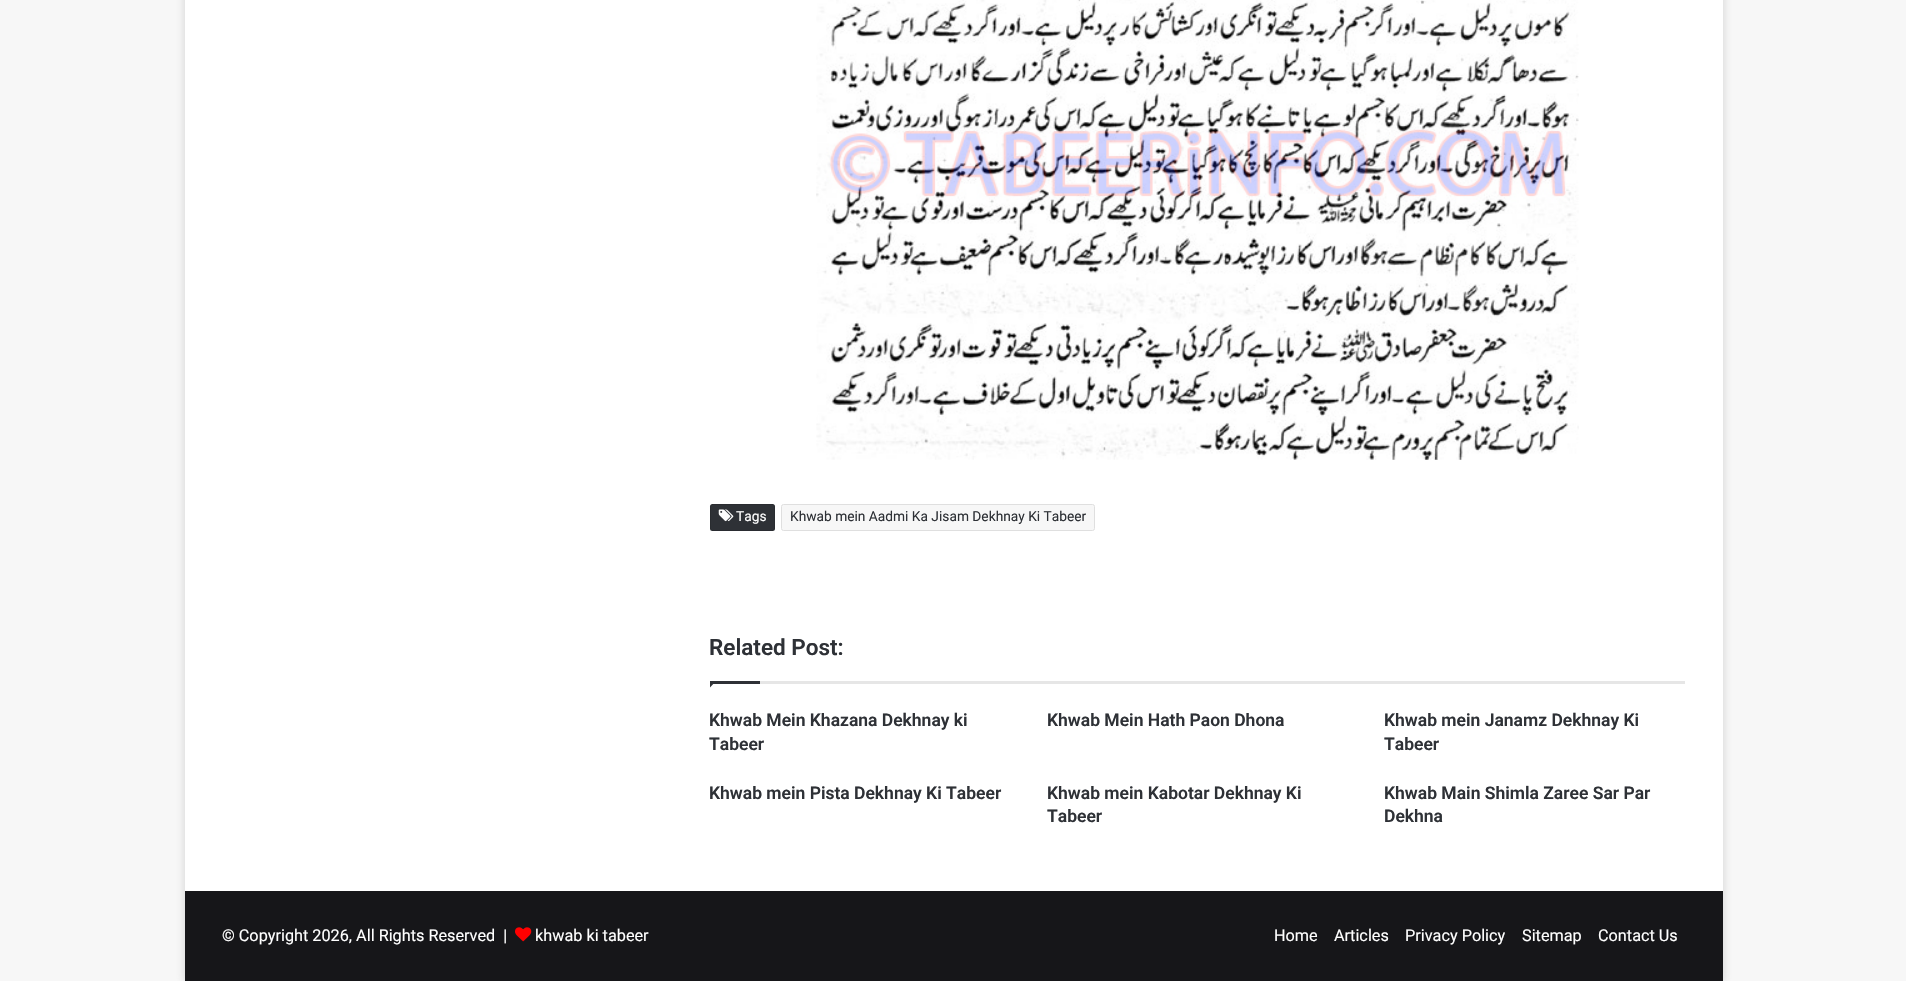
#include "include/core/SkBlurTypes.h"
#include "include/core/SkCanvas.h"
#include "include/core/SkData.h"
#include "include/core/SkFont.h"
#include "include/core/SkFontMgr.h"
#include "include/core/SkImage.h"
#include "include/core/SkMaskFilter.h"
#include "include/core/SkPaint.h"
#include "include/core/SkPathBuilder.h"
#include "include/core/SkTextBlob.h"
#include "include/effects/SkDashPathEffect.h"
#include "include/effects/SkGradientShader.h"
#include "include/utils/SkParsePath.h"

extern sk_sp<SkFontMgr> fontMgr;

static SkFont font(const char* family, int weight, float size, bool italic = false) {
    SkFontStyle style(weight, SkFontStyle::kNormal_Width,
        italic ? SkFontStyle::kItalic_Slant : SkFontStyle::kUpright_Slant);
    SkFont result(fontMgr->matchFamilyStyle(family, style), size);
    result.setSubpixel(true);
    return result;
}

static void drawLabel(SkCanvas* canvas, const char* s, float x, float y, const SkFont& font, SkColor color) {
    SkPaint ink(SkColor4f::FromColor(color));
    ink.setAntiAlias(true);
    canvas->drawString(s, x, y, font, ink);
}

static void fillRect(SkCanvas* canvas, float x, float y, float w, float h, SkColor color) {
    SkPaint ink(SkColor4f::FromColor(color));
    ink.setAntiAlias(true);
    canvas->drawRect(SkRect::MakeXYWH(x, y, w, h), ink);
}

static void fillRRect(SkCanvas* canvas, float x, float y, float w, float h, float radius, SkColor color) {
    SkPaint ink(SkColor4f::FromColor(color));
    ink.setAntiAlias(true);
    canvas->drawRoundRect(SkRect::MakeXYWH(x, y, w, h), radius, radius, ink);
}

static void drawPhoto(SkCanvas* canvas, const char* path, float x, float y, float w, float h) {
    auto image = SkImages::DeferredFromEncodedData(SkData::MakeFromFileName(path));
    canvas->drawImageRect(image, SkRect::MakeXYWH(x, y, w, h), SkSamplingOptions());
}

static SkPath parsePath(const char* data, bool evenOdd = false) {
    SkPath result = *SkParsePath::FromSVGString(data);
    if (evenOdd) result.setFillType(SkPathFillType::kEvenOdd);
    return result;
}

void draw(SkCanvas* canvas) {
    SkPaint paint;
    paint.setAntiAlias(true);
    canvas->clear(0xFFF7F7F7);
    paint.setColor(0x80ABABAB);
    paint.setMaskFilter(SkMaskFilter::MakeBlur(kNormal_SkBlurStyle, 4.5f));
    canvas->drawRect(SkRect::MakeXYWH(185, -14, 1538, 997), paint);
    paint.setMaskFilter(nullptr);
    fillRect(canvas, 185, 0, 1538, 891, 0xFFFFFFFF);
    drawPhoto(canvas, "assets/img1.png", 816, 0, 763, 460);
    fillRRect(canvas, 710, 504, 65, 27, 2.5f, 0xFF2E3136);
    paint.setStroke(true);
    paint.setStrokeWidth(1);
    paint.setColor(0x1A030303);
    canvas->drawRoundRect(SkRect::MakeXYWH(710.5f, 504.5f, 64, 26), 2, 2, paint);
    drawPhoto(canvas, "assets/img2.png", 718, 509, 16, 13);
    SkFont font1 = font("Roboto", 400, 13.75f);
    drawLabel(canvas, "Tags", 736, 521, font1, 0xFFFFFFFF);
    paint.setStroke(false);
    paint.setColor(0xFFF7F7F7);
    canvas->drawRoundRect(SkRect::MakeXYWH(781.5f, 504.5f, 313, 26), 2, 2, paint);
    paint.setStroke(true);
    paint.setColor(0xFFDFDFDF);
    canvas->drawRoundRect(SkRect::MakeXYWH(781.5f, 504.5f, 313, 26), 2, 2, paint);
    drawLabel(canvas, "Khwab mein Aadmi Ka Jisam Dekhnay Ki Tabeer", 790, 521, font1, 0xFF2E3136);
    fillRect(canvas, 760, 681, 925, 3, 0xFFE6E6E6);
    SkFont font2 = font("Roboto", 600, 22.5f);
    drawLabel(canvas, "Related Post:", 709, 655, font2, 0xFF2E3136);
    paint.setStroke(false);
    paint.setColor(0xFF2E3136);
    canvas->drawPath(parsePath("M710 681H716L710 687.5Z"), paint);
    fillRect(canvas, 710, 681, 50, 3, 0xFF2E3136);
    SkFont font3 = font("Roboto", 600, 17.5f);
    drawLabel(canvas, "Khwab Mein Khazana Dekhnay ki", 709, 726, font3, 0xFF2E3136);
    drawLabel(canvas, "Tabeer", 709, 750, font3, 0xFF2E3136);
    drawLabel(canvas, "Khwab Mein Hath Paon Dhona", 1047, 726, font3, 0xFF2E3136);
    drawLabel(canvas, "Khwab mein Janamz Dekhnay Ki", 1384, 726, font3, 0xFF2E3136);
    drawLabel(canvas, "Tabeer", 1384, 750, font3, 0xFF2E3136);
    drawLabel(canvas, "Khwab mein Pista Dekhnay Ki Tabeer", 709, 799, font3, 0xFF2E3136);
    drawLabel(canvas, "Khwab mein Kabotar Dekhnay Ki", 1047, 799, font3, 0xFF2E3136);
    drawLabel(canvas, "Tabeer", 1047, 822, font3, 0xFF2E3136);
    drawLabel(canvas, "Khwab Main Shimla Zaree Sar Par", 1384, 799, font3, 0xFF2E3136);
    drawLabel(canvas, "Dekhna", 1384, 822, font3, 0xFF2E3136);
    fillRect(canvas, 185, 891, 1538, 90, 0xFF161619);
    SkFont font4 = font("Roboto", 400, 16.25f);
    drawLabel(canvas, "© Copyright 2026, All Rights Reserved  |", 222, 941, font4, 0xFFFFFFFF);
    drawPhoto(canvas, "assets/img3.png", 515, 927, 17, 15);
    drawLabel(canvas, "khwab ki tabeer", 535, 941, font4, 0xFFFFFFFF);
    drawLabel(canvas, "Home", 1274, 941, font4, 0xFFFFFFFF);
    drawLabel(canvas, "Articles", 1334, 941, font4, 0xFFFFFFFF);
    drawLabel(canvas, "Privacy Policy", 1405, 941, font4, 0xFFFFFFFF);
    drawLabel(canvas, "Sitemap", 1522, 941, font4, 0xFFFFFFFF);
    drawLabel(canvas, "Contact Us", 1598, 941, font4, 0xFFFFFFFF);
}
